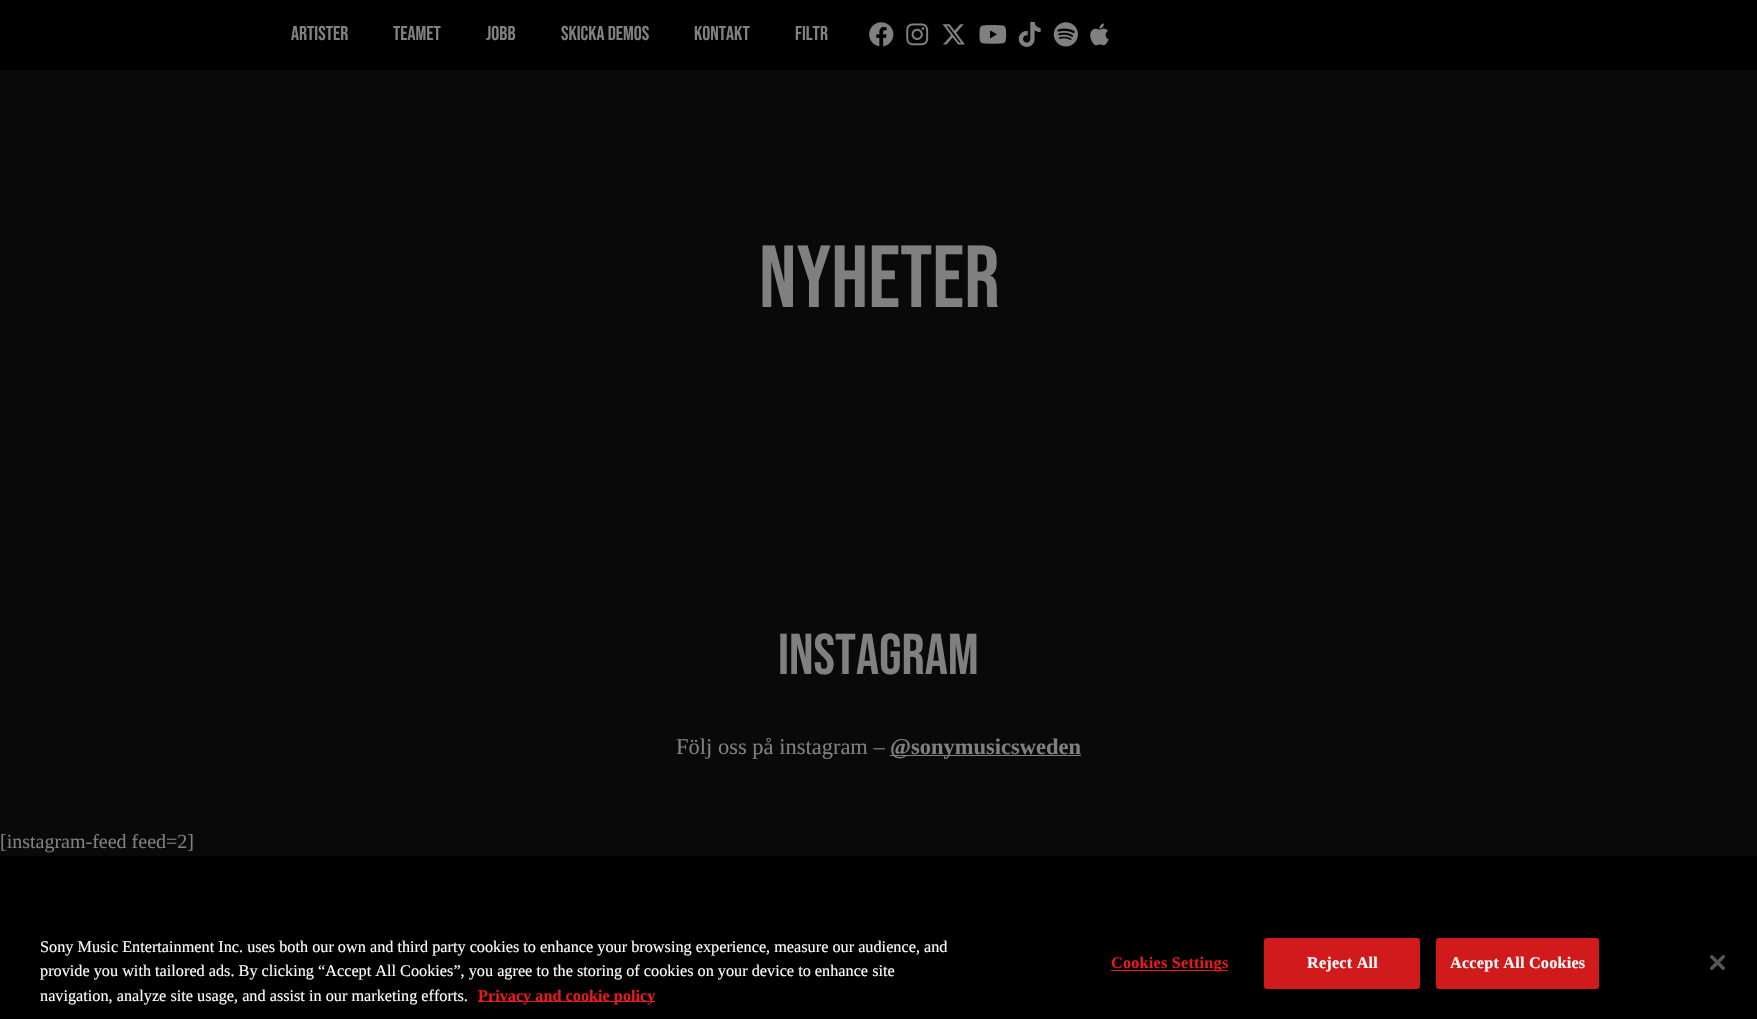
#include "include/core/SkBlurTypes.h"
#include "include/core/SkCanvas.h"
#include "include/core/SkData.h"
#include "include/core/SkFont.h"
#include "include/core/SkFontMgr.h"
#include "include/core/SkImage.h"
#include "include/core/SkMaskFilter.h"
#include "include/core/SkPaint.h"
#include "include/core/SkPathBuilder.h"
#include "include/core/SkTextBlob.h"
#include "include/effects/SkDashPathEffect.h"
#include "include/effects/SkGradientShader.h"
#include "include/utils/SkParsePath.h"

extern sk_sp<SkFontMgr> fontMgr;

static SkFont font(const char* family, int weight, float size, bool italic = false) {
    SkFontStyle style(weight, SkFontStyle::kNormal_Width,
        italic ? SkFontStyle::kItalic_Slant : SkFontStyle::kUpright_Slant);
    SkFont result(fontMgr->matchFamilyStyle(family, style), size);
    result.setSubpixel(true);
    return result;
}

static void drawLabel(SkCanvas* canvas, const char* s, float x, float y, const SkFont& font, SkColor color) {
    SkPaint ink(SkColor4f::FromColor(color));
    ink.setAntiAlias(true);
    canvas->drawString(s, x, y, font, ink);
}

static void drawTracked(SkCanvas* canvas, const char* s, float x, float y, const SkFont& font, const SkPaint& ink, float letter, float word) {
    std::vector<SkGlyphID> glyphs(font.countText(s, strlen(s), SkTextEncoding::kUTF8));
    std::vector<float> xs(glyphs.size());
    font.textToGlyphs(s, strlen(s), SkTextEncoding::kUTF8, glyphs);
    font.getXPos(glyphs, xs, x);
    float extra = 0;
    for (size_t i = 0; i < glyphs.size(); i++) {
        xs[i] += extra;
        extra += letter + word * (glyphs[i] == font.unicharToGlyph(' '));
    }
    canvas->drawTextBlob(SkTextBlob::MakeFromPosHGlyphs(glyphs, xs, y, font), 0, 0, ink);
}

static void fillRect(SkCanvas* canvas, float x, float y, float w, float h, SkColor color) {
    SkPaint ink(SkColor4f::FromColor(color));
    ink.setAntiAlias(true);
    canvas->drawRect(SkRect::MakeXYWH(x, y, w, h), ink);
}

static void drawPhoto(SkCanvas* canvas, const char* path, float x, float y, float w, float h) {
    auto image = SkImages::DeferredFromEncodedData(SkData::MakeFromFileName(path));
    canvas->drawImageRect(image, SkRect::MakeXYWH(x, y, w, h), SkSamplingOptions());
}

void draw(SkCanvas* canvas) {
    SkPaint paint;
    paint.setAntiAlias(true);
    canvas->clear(0xFF090909);
    fillRect(canvas, 0, 0, 1757, 70, 0xFF000000);
    SkFont font1 = font("Bebas Neue", 400, 20);
    drawLabel(canvas, "Artister", 291, 40, font1, 0xFF808080);
    drawLabel(canvas, "Teamet", 393, 40, font1, 0xFF808080);
    drawLabel(canvas, "Jobb", 486, 40, font1, 0xFF808080);
    drawLabel(canvas, "Skicka demos", 561, 40, font1, 0xFF808080);
    drawLabel(canvas, "Kontakt", 694, 40, font1, 0xFF808080);
    drawLabel(canvas, "Filtr", 795, 40, font1, 0xFF808080);
    drawPhoto(canvas, "assets/img1.png", 869, 22, 25, 25);
    drawPhoto(canvas, "assets/img2.png", 906, 23, 23, 23);
    drawPhoto(canvas, "assets/img3.png", 942, 24, 23, 21);
    drawPhoto(canvas, "assets/img4.png", 979, 25, 28, 19);
    drawPhoto(canvas, "assets/img5.png", 1018, 21, 23, 26);
    drawPhoto(canvas, "assets/img6.png", 1053, 22, 25, 25);
    drawPhoto(canvas, "assets/img7.png", 1090, 23, 19, 23);
    SkFont font2 = font("Bebas Neue", 400, 88);
    drawLabel(canvas, "NYHETER", 759, 307, font2, 0xFF808080);
    SkFont font3 = font("Bebas Neue", 400, 57.5f);
    drawLabel(canvas, "INSTAGRAM", 778, 674, font3, 0xFF808080);
    SkFont font4 = font("Liberation Serif", 400, 22.5f);
    drawLabel(canvas, "Följ oss på instagram –", 676, 754, font4, 0xFF808080);
    fillRect(canvas, 890, 755, 191, 1, 0xFF808080);
    SkFont font5 = font("Liberation Serif", 700, 22.5f);
    drawLabel(canvas, "@sonymusicsweden", 890, 754, font5, 0xFF808080);
    SkFont font6 = font("Liberation Serif", 400, 20);
    drawLabel(canvas, "[instagram-feed feed=2]", 0, 848, font6, 0xFF808080);
    fillRect(canvas, 0, 856, 1757, 163, 0xFF000000);
    SkFont font7 = font("Liberation Serif", 400, 16.25f);
    drawLabel(canvas, "Sony Music Entertainment Inc. uses both our own and third party cookies to enhance your browsing experience, measure our audience, and", 40, 952, font7, 0xFFFDFCFC);
    drawLabel(canvas, "provide you with tailored ads. By clicking “Accept All Cookies”, you agree to the storing of cookies on your device to enhance site", 40, 976, font7, 0xFFFDFCFC);
    drawLabel(canvas, "navigation, analyze site usage, and assist in our marketing efforts.", 40, 1001, font7, 0xFFFDFCFC);
    fillRect(canvas, 478, 1001, 177, 1, 0xFFE61A1C);
    SkFont font8 = font("Liberation Serif", 700, 16.25f);
    drawLabel(canvas, "Privacy and cookie policy", 478, 1001, font8, 0xFFE61A1C);
    fillRect(canvas, 1111, 970, 117, 1, 0xFFE61A1C);
    paint.setColor(0xFFE61A1C);
    drawTracked(canvas, "Cookies Settings", 1111, 968, font8, paint, 0.2f, 0);
    paint.setColor(0xFFD11A1C);
    canvas->drawRoundRect(SkRect::MakeXYWH(1264.5f, 938.5f, 155, 50), 2, 2, paint);
    paint.setStroke(true);
    paint.setStrokeWidth(1);
    canvas->drawRoundRect(SkRect::MakeXYWH(1264.5f, 938.5f, 155, 50), 2, 2, paint);
    paint.setStroke(false);
    paint.setColor(0xFFFDFCFC);
    drawTracked(canvas, "Reject All", 1307, 968, font8, paint, 0.2f, 0);
    paint.setColor(0xFFD11A1C);
    canvas->drawRoundRect(SkRect::MakeXYWH(1436.5f, 938.5f, 162, 50), 2, 2, paint);
    paint.setStroke(true);
    canvas->drawRoundRect(SkRect::MakeXYWH(1436.5f, 938.5f, 162, 50), 2, 2, paint);
    paint.setStroke(false);
    paint.setColor(0xFFFDFCFC);
    drawTracked(canvas, "Accept All Cookies", 1450, 968, font8, paint, 0.2f, 0);
    drawPhoto(canvas, "assets/img8.png", 1710, 955, 15, 15);
}
